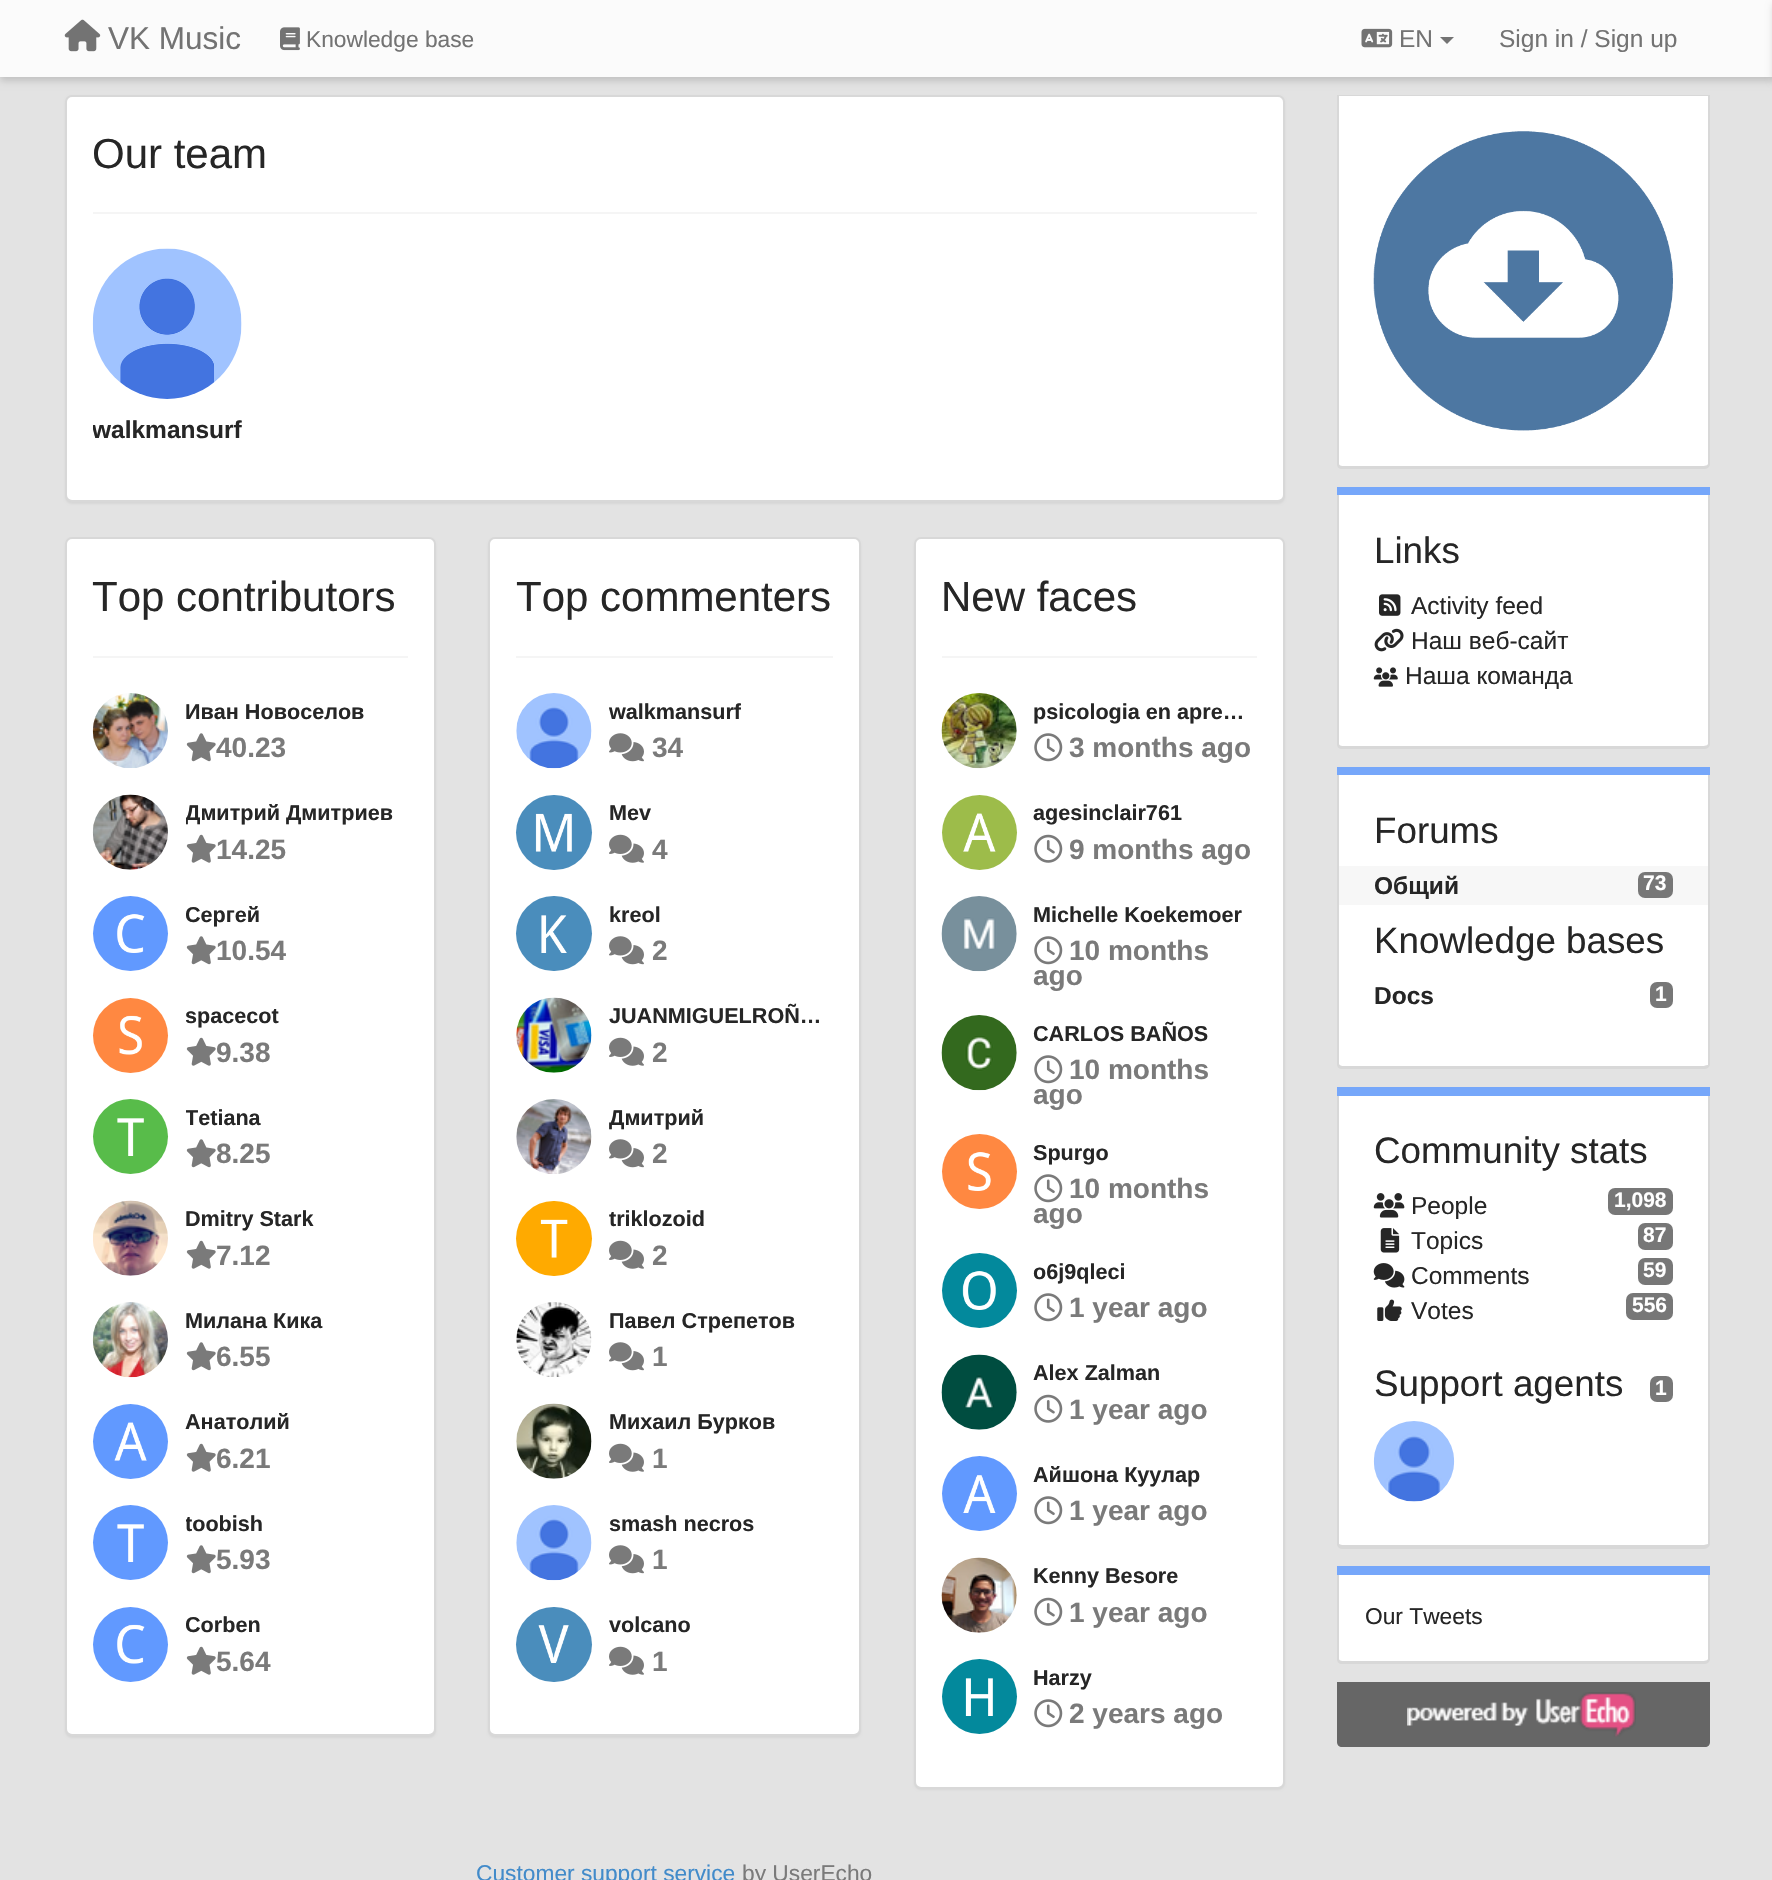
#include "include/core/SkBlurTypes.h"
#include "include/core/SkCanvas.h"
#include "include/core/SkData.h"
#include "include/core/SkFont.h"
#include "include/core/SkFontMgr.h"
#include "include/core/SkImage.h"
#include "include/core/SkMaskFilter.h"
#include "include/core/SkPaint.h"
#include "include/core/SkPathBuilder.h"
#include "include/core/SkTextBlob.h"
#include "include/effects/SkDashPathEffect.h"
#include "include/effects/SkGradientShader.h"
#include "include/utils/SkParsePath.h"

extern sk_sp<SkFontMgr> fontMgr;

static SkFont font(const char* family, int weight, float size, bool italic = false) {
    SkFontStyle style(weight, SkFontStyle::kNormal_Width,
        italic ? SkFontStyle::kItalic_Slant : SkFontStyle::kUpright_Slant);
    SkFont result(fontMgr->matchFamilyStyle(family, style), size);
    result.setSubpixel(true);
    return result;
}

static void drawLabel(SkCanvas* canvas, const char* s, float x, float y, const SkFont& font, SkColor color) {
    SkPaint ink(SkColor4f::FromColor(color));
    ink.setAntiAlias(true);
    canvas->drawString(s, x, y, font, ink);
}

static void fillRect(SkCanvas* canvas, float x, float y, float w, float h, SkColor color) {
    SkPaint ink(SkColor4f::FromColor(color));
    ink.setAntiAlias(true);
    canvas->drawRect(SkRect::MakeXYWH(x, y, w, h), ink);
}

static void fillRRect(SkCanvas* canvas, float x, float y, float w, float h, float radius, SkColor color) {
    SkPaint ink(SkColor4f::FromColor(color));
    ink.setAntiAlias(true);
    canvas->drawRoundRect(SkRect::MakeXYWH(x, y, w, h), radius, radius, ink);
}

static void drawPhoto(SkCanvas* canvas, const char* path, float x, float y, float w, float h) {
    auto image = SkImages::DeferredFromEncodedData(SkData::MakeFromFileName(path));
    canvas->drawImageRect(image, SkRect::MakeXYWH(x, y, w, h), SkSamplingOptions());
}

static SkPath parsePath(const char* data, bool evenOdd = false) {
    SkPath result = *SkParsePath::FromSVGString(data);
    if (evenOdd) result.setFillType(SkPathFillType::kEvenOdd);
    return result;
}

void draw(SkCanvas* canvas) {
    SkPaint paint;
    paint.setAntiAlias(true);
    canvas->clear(0xFFE3E3E3);
    paint.setColor(0x26000000);
    paint.setMaskFilter(SkMaskFilter::MakeBlur(kNormal_SkBlurStyle, 3.5f));
    canvas->drawRect(SkRect::MakeXYWH(0, 4, 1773, 77), paint);
    paint.setMaskFilter(nullptr);
    fillRect(canvas, 0, 0, 1772, 77, 0xFFFBFBFB);
    drawPhoto(canvas, "assets/img1.png", 64, 19, 37, 33);
    SkFont font1 = font("Liberation Sans", 400, 31.5f);
    drawLabel(canvas, "VK Music", 108, 49, font1, 0xFF737373);
    drawPhoto(canvas, "assets/img2.png", 280, 27, 20, 24);
    SkFont font2 = font("Liberation Sans", 400, 22.75f);
    drawLabel(canvas, "Knowledge base", 306, 47, font2, 0xFF737373);
    drawPhoto(canvas, "assets/img3.png", 1361, 28, 32, 20);
    SkFont font3 = font("Liberation Sans", 400, 24.5f);
    drawLabel(canvas, "EN", 1399, 47, font3, 0xFF737373);
    paint.setColor(0xFF737373);
    canvas->drawPath(parsePath("M1440 37H1454L1447 44Z"), paint);
    drawLabel(canvas, "Sign in / Sign up", 1499, 47, font3, 0xFF737373);
    paint.setColor(0x26000000);
    paint.setMaskFilter(SkMaskFilter::MakeBlur(kNormal_SkBlurStyle, 3.5f));
    canvas->drawRect(SkRect::MakeXYWH(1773, 4, 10, 77), paint);
    paint.setMaskFilter(nullptr);
    paint.setColor(0x0D000000);
    paint.setMaskFilter(SkMaskFilter::MakeBlur(kNormal_SkBlurStyle, 1));
    canvas->drawRoundRect(SkRect::MakeXYWH(65, 96, 1220, 408), 7, 7, paint);
    paint.setMaskFilter(nullptr);
    paint.setColor(0xFFFFFFFF);
    canvas->drawRoundRect(SkRect::MakeXYWH(66, 96, 1218, 405), 6, 6, paint);
    paint.setStroke(true);
    paint.setStrokeWidth(2);
    paint.setColor(0xFFD8D8D8);
    canvas->drawRoundRect(SkRect::MakeXYWH(66, 96, 1218, 405), 6, 6, paint);
    fillRect(canvas, 93, 212, 1164, 2, 0xFFF5F5F5);
    SkFont font4 = font("Liberation Sans", 400, 42);
    drawLabel(canvas, "Our team", 92, 168, font4, 0xFF262626);
    drawPhoto(canvas, "assets/img4.png", 92, 248, 150, 151);
    canvas->save();
    canvas->clipRect(SkRect::MakeXYWH(93, 413, 149, 32));
    SkFont font5 = font("Liberation Sans", 700, 24.5f);
    drawLabel(canvas, "walkmansurf", 92, 438, font5, 0xFF262626);
    canvas->restore();
    paint.setStroke(false);
    paint.setColor(0x0D000000);
    paint.setMaskFilter(SkMaskFilter::MakeBlur(kNormal_SkBlurStyle, 1));
    canvas->drawRoundRect(SkRect::MakeXYWH(65, 539, 371, 1199), 7, 7, paint);
    paint.setMaskFilter(nullptr);
    paint.setColor(0xFFFFFFFF);
    canvas->drawRoundRect(SkRect::MakeXYWH(66, 538, 369, 1197), 6, 6, paint);
    paint.setStroke(true);
    paint.setColor(0xFFD8D8D8);
    canvas->drawRoundRect(SkRect::MakeXYWH(66, 538, 369, 1197), 6, 6, paint);
    fillRect(canvas, 93, 656, 315, 2, 0xFFF5F5F5);
    drawLabel(canvas, "Top contributors", 92, 611, font4, 0xFF262626);
    drawPhoto(canvas, "assets/img5.png", 92, 693, 76, 75);
    SkFont font6 = font("Liberation Sans", 700, 21.6f);
    drawLabel(canvas, "Иван Новоселов", 185, 719, font6, 0xFF262626);
    drawPhoto(canvas, "assets/img6.png", 186, 733, 30, 29);
    SkFont font7 = font("Liberation Sans", 700, 28);
    drawLabel(canvas, "40.23", 216, 757, font7, 0xFF7A7A7A);
    drawPhoto(canvas, "assets/img7.png", 92, 794, 76, 76);
    canvas->save();
    canvas->clipRect(SkRect::MakeXYWH(186, 795, 222, 40));
    drawLabel(canvas, "Дмитрий Дмитриев", 185, 820, font6, 0xFF262626);
    canvas->restore();
    drawPhoto(canvas, "assets/img8.png", 186, 834, 30, 29);
    drawLabel(canvas, "14.25", 216, 859, font7, 0xFF7A7A7A);
    paint.setStroke(false);
    paint.setColor(0xFF6199FF);
    canvas->drawCircle(130.5f, 933.5f, 37.5f, paint);
    drawPhoto(canvas, "assets/img9.png", 117, 914, 28, 39);
    canvas->save();
    canvas->clipRect(SkRect::MakeXYWH(186, 896, 222, 40));
    drawLabel(canvas, "Сергей", 185, 922, font6, 0xFF262626);
    canvas->restore();
    drawPhoto(canvas, "assets/img6.png", 186, 936, 30, 29);
    drawLabel(canvas, "10.54", 216, 960, font7, 0xFF7A7A7A);
    paint.setColor(0xFFFF8841);
    canvas->drawCircle(130.5f, 1035.5f, 37.5f, paint);
    drawPhoto(canvas, "assets/img10.png", 119, 1015, 23, 40);
    canvas->save();
    canvas->clipRect(SkRect::MakeXYWH(186, 998, 222, 40));
    drawLabel(canvas, "spacecot", 185, 1023, font6, 0xFF262626);
    canvas->restore();
    drawPhoto(canvas, "assets/img8.png", 186, 1037, 30, 29);
    drawLabel(canvas, "9.38", 216, 1062, font7, 0xFF7A7A7A);
    paint.setColor(0xFF58BC4A);
    canvas->drawCircle(130.5f, 1136.5f, 37.5f, paint);
    drawPhoto(canvas, "assets/img11.png", 117, 1118, 27, 38);
    canvas->save();
    canvas->clipRect(SkRect::MakeXYWH(186, 1099, 222, 40));
    drawLabel(canvas, "Tetiana", 185, 1125, font6, 0xFF262626);
    canvas->restore();
    drawPhoto(canvas, "assets/img6.png", 186, 1139, 30, 29);
    drawLabel(canvas, "8.25", 216, 1163, font7, 0xFF7A7A7A);
    drawPhoto(canvas, "assets/img12.png", 93, 1200, 75, 76);
    drawLabel(canvas, "Dmitry Stark", 185, 1226, font6, 0xFF262626);
    drawPhoto(canvas, "assets/img8.png", 186, 1240, 30, 29);
    drawLabel(canvas, "7.12", 216, 1265, font7, 0xFF7A7A7A);
    drawPhoto(canvas, "assets/img13.png", 92, 1302, 76, 76);
    drawLabel(canvas, "Милана Кика", 185, 1328, font6, 0xFF262626);
    drawPhoto(canvas, "assets/img6.png", 186, 1342, 30, 29);
    drawLabel(canvas, "6.55", 216, 1366, font7, 0xFF7A7A7A);
    paint.setColor(0xFF6199FF);
    canvas->drawCircle(130.5f, 1441.5f, 37.5f, paint);
    drawPhoto(canvas, "assets/img14.png", 114, 1422, 33, 39);
    drawLabel(canvas, "Анатолий", 185, 1429, font6, 0xFF262626);
    drawPhoto(canvas, "assets/img8.png", 186, 1443, 30, 29);
    drawLabel(canvas, "6.21", 216, 1468, font7, 0xFF7A7A7A);
    canvas->drawCircle(130.5f, 1542.5f, 37.5f, paint);
    drawPhoto(canvas, "assets/img15.png", 117, 1524, 27, 38);
    canvas->save();
    canvas->clipRect(SkRect::MakeXYWH(186, 1505, 222, 40));
    drawLabel(canvas, "toobish", 185, 1531, font6, 0xFF262626);
    canvas->restore();
    drawPhoto(canvas, "assets/img6.png", 186, 1545, 30, 29);
    drawLabel(canvas, "5.93", 216, 1569, font7, 0xFF7A7A7A);
    canvas->drawCircle(130.5f, 1644.5f, 37.5f, paint);
    drawPhoto(canvas, "assets/img16.png", 117, 1624, 28, 40);
    canvas->save();
    canvas->clipRect(SkRect::MakeXYWH(186, 1607, 222, 40));
    drawLabel(canvas, "Corben", 185, 1632, font6, 0xFF262626);
    canvas->restore();
    drawPhoto(canvas, "assets/img8.png", 186, 1646, 30, 29);
    drawLabel(canvas, "5.64", 216, 1671, font7, 0xFF7A7A7A);
    paint.setColor(0x0D000000);
    paint.setMaskFilter(SkMaskFilter::MakeBlur(kNormal_SkBlurStyle, 1));
    canvas->drawRoundRect(SkRect::MakeXYWH(488, 539, 373, 1199), 7, 7, paint);
    paint.setMaskFilter(nullptr);
    paint.setColor(0xFFFFFFFF);
    canvas->drawRoundRect(SkRect::MakeXYWH(489, 538, 371, 1197), 6, 6, paint);
    paint.setStroke(true);
    paint.setColor(0xFFD8D8D8);
    canvas->drawRoundRect(SkRect::MakeXYWH(489, 538, 371, 1197), 6, 6, paint);
    fillRect(canvas, 516, 656, 317, 2, 0xFFF5F5F5);
    drawLabel(canvas, "Top commenters", 516, 611, font4, 0xFF262626);
    drawPhoto(canvas, "assets/img17.png", 516, 693, 76, 76);
    drawLabel(canvas, "walkmansurf", 609, 719, font6, 0xFF262626);
    drawPhoto(canvas, "assets/img18.png", 609, 733, 35, 29);
    drawLabel(canvas, "34", 652, 757, font7, 0xFF7A7A7A);
    fillRRect(canvas, 516, 795, 76, 75, 37.5f, 0xFF4A8DBC);
    drawPhoto(canvas, "assets/img19.png", 535, 813, 37, 39);
    drawLabel(canvas, "Mev", 609, 820, font6, 0xFF262626);
    drawPhoto(canvas, "assets/img20.png", 609, 834, 35, 29);
    drawLabel(canvas, "4", 652, 859, font7, 0xFF7A7A7A);
    fillRRect(canvas, 516, 896, 76, 75, 37.5f, 0xFF4A8DBC);
    drawPhoto(canvas, "assets/img21.png", 541, 915, 26, 38);
    drawLabel(canvas, "kreol", 609, 922, font6, 0xFF262626);
    drawPhoto(canvas, "assets/img18.png", 609, 936, 35, 29);
    drawLabel(canvas, "2", 652, 960, font7, 0xFF7A7A7A);
    drawPhoto(canvas, "assets/img22.png", 516, 997, 76, 76);
    drawLabel(canvas, "JUANMIGUELROÑ…", 609, 1023, font6, 0xFF262626);
    drawPhoto(canvas, "assets/img20.png", 609, 1037, 35, 29);
    drawLabel(canvas, "2", 652, 1062, font7, 0xFF7A7A7A);
    drawPhoto(canvas, "assets/img23.png", 516, 1099, 76, 75);
    drawLabel(canvas, "Дмитрий", 609, 1125, font6, 0xFF262626);
    drawPhoto(canvas, "assets/img18.png", 609, 1139, 35, 29);
    drawLabel(canvas, "2", 652, 1163, font7, 0xFF7A7A7A);
    fillRRect(canvas, 516, 1201, 76, 75, 37.5f, 0xFFFFAA00);
    drawPhoto(canvas, "assets/img24.png", 540, 1219, 28, 39);
    drawLabel(canvas, "triklozoid", 609, 1226, font6, 0xFF262626);
    drawPhoto(canvas, "assets/img20.png", 609, 1240, 35, 29);
    drawLabel(canvas, "2", 652, 1265, font7, 0xFF7A7A7A);
    drawPhoto(canvas, "assets/img25.png", 516, 1302, 76, 75);
    drawLabel(canvas, "Павел Стрепетов", 609, 1328, font6, 0xFF262626);
    drawPhoto(canvas, "assets/img18.png", 609, 1342, 35, 29);
    drawLabel(canvas, "1", 652, 1366, font7, 0xFF7A7A7A);
    drawPhoto(canvas, "assets/img26.png", 516, 1403, 76, 76);
    drawLabel(canvas, "Михаил Бурков", 609, 1429, font6, 0xFF262626);
    drawPhoto(canvas, "assets/img20.png", 609, 1443, 35, 29);
    drawLabel(canvas, "1", 652, 1468, font7, 0xFF7A7A7A);
    drawPhoto(canvas, "assets/img27.png", 516, 1505, 76, 76);
    drawLabel(canvas, "smash necros", 609, 1531, font6, 0xFF262626);
    drawPhoto(canvas, "assets/img18.png", 609, 1545, 35, 29);
    drawLabel(canvas, "1", 652, 1569, font7, 0xFF7A7A7A);
    fillRRect(canvas, 516, 1607, 76, 75, 37.5f, 0xFF4A8DBC);
    drawPhoto(canvas, "assets/img28.png", 538, 1625, 31, 38);
    drawLabel(canvas, "volcano", 609, 1632, font6, 0xFF262626);
    drawPhoto(canvas, "assets/img20.png", 609, 1646, 35, 29);
    drawLabel(canvas, "1", 652, 1671, font7, 0xFF7A7A7A);
    paint.setStroke(false);
    paint.setColor(0x0D000000);
    paint.setMaskFilter(SkMaskFilter::MakeBlur(kNormal_SkBlurStyle, 1));
    canvas->drawRoundRect(SkRect::MakeXYWH(914, 539, 371, 1251), 7, 7, paint);
    paint.setMaskFilter(nullptr);
    paint.setColor(0xFFFFFFFF);
    canvas->drawRoundRect(SkRect::MakeXYWH(915, 538, 369, 1250), 6, 6, paint);
    paint.setStroke(true);
    paint.setColor(0xFFD8D8D8);
    canvas->drawRoundRect(SkRect::MakeXYWH(915, 538, 369, 1250), 6, 6, paint);
    fillRect(canvas, 942, 656, 315, 2, 0xFFF5F5F5);
    drawLabel(canvas, "New faces", 941, 611, font4, 0xFF262626);
    drawPhoto(canvas, "assets/img29.png", 941, 693, 76, 76);
    drawLabel(canvas, "psicologia en apre…", 1033, 719, font6, 0xFF262626);
    drawPhoto(canvas, "assets/img30.png", 1034, 733, 29, 29);
    drawLabel(canvas, "3 months ago", 1069, 757, font7, 0xFF7A7A7A);
    paint.setStroke(false);
    paint.setColor(0xFF9DBC4A);
    canvas->drawCircle(979.5f, 832.5f, 37.5f, paint);
    drawPhoto(canvas, "assets/img31.png", 963, 813, 33, 39);
    drawLabel(canvas, "agesinclair761", 1033, 820, font6, 0xFF262626);
    drawPhoto(canvas, "assets/img32.png", 1034, 834, 29, 29);
    drawLabel(canvas, "9 months ago", 1069, 859, font7, 0xFF7A7A7A);
    drawPhoto(canvas, "assets/img33.png", 941, 896, 76, 76);
    drawLabel(canvas, "Michelle Koekemoer", 1033, 922, font6, 0xFF262626);
    drawPhoto(canvas, "assets/img30.png", 1034, 936, 29, 29);
    drawLabel(canvas, "10 months", 1069, 960, font7, 0xFF7A7A7A);
    drawLabel(canvas, "ago", 1033, 985, font7, 0xFF7A7A7A);
    drawPhoto(canvas, "assets/img34.png", 941, 1015, 76, 76);
    drawLabel(canvas, "CARLOS BAÑOS", 1033, 1041, font6, 0xFF262626);
    drawPhoto(canvas, "assets/img30.png", 1034, 1055, 29, 29);
    drawLabel(canvas, "10 months", 1069, 1079, font7, 0xFF7A7A7A);
    drawLabel(canvas, "ago", 1033, 1104, font7, 0xFF7A7A7A);
    paint.setColor(0xFFFF8841);
    canvas->drawCircle(979.5f, 1171.5f, 37.5f, paint);
    drawPhoto(canvas, "assets/img35.png", 968, 1152, 23, 39);
    drawLabel(canvas, "Spurgo", 1033, 1160, font6, 0xFF262626);
    drawPhoto(canvas, "assets/img30.png", 1034, 1174, 29, 29);
    drawLabel(canvas, "10 months", 1069, 1198, font7, 0xFF7A7A7A);
    drawLabel(canvas, "ago", 1033, 1223, font7, 0xFF7A7A7A);
    paint.setColor(0xFF03899C);
    canvas->drawCircle(979.5f, 1290.5f, 37.5f, paint);
    drawPhoto(canvas, "assets/img36.png", 962, 1271, 34, 39);
    drawLabel(canvas, "o6j9qleci", 1033, 1279, font6, 0xFF262626);
    drawPhoto(canvas, "assets/img30.png", 1034, 1293, 29, 29);
    drawLabel(canvas, "1 year ago", 1069, 1317, font7, 0xFF7A7A7A);
    drawPhoto(canvas, "assets/img37.png", 941, 1354, 76, 76);
    drawLabel(canvas, "Alex Zalman", 1033, 1380, font6, 0xFF262626);
    drawPhoto(canvas, "assets/img32.png", 1034, 1394, 29, 29);
    drawLabel(canvas, "1 year ago", 1069, 1419, font7, 0xFF7A7A7A);
    paint.setColor(0xFF6199FF);
    canvas->drawCircle(979.5f, 1493.5f, 37.5f, paint);
    drawPhoto(canvas, "assets/img38.png", 963, 1475, 33, 38);
    drawLabel(canvas, "Айшона Куулар", 1033, 1482, font6, 0xFF262626);
    drawPhoto(canvas, "assets/img30.png", 1034, 1496, 29, 29);
    drawLabel(canvas, "1 year ago", 1069, 1520, font7, 0xFF7A7A7A);
    drawPhoto(canvas, "assets/img39.png", 941, 1557, 76, 76);
    drawLabel(canvas, "Kenny Besore", 1033, 1583, font6, 0xFF262626);
    drawPhoto(canvas, "assets/img32.png", 1034, 1597, 29, 29);
    drawLabel(canvas, "1 year ago", 1069, 1622, font7, 0xFF7A7A7A);
    paint.setColor(0xFF03899C);
    canvas->drawCircle(979.5f, 1696.5f, 37.5f, paint);
    drawPhoto(canvas, "assets/img40.png", 965, 1678, 28, 38);
    drawLabel(canvas, "Harzy", 1033, 1685, font6, 0xFF262626);
    drawPhoto(canvas, "assets/img30.png", 1034, 1699, 29, 29);
    drawLabel(canvas, "2 years ago", 1069, 1723, font7, 0xFF7A7A7A);
    drawLabel(canvas, "Customer support service", 476, 1881, font2, 0xFF428BCA);
    drawLabel(canvas, "by UserEcho", 742, 1881, font2, 0xFF7A7A7A);
    fillRect(canvas, 1337, 95, 373, 1, 0xFFD8D8D8);
    paint.setColor(0xFFFFFFFF);
    canvas->drawPath(parsePath("M1339 96H1708V464C1708 465 1706 466 1704 466H1342C1340 466 1339 465 1339 464Z"), paint);
    paint.setColor(0xFFD8D8D8);
    canvas->drawPath(parsePath("M1337 96H1710V464C1710 467 1707 469 1704 469H1342C1339 469 1337 467 1337 464ZM1339 96H1708V464C1708 465 1706 466 1704 466H1342C1340 466 1339 465 1339 464Z", true), paint);
    drawPhoto(canvas, "assets/img41.png", 1373, 131, 300, 300);
    fillRect(canvas, 1337, 487, 373, 8, 0xFF76A7FA);
    paint.setColor(0xFFFFFFFF);
    canvas->drawPath(parsePath("M1339 495H1708V744C1708 745 1706 746 1704 746H1342C1340 746 1339 745 1339 744Z"), paint);
    paint.setColor(0xFFD8D8D8);
    canvas->drawPath(parsePath("M1337 495H1710V744C1710 747 1707 749 1704 749H1342C1339 749 1337 747 1337 744ZM1339 495H1708V744C1708 745 1706 746 1704 746H1342C1340 746 1339 745 1339 744Z", true), paint);
    SkFont font8 = font("Liberation Sans", 400, 36.75f);
    drawLabel(canvas, "Links", 1374, 563, font8, 0xFF262626);
    drawPhoto(canvas, "assets/img42.png", 1379, 594, 22, 22);
    drawLabel(canvas, "Activity feed", 1411, 614, font3, 0xFF262626);
    drawPhoto(canvas, "assets/img43.png", 1374, 628, 30, 24);
    drawLabel(canvas, "Наш веб-сайт", 1411, 649, font3, 0xFF262626);
    drawPhoto(canvas, "assets/img44.png", 1373, 667, 25, 20);
    drawLabel(canvas, "Наша команда", 1405, 684, font3, 0xFF262626);
    fillRect(canvas, 1337, 767, 373, 8, 0xFF76A7FA);
    paint.setColor(0xFFFFFFFF);
    canvas->drawPath(parsePath("M1339 775H1708V1065L1704 1066H1342C1341 1066 1339 1065 1339 1064Z"), paint);
    paint.setColor(0xFFD8D8D8);
    canvas->drawPath(parsePath("M1337 775H1710V1064C1710 1067 1707 1069 1704 1069H1342C1339 1069 1337 1067 1337 1064ZM1339 775H1708V1065L1704 1066H1342C1341 1066 1339 1065 1339 1064Z", true), paint);
    drawLabel(canvas, "Forums", 1374, 843, font8, 0xFF262626);
    fillRect(canvas, 1339, 866, 369, 39, 0xFFF7F7F7);
    drawLabel(canvas, "Общий", 1374, 894, font5, 0xFF262626);
    fillRRect(canvas, 1638, 872, 35, 26, 7, 0xFF777777);
    SkFont font9 = font("Liberation Sans", 700, 21);
    drawLabel(canvas, "73", 1643, 890, font9, 0xFFFFFFFF);
    drawLabel(canvas, "Knowledge bases", 1374, 953, font8, 0xFF262626);
    drawLabel(canvas, "Docs", 1374, 1004, font5, 0xFF262626);
    fillRRect(canvas, 1650, 982, 23, 26, 7, 0xFF777777);
    drawLabel(canvas, "1", 1655, 1001, font9, 0xFFFFFFFF);
    fillRect(canvas, 1337, 1087, 373, 9, 0xFF76A7FA);
    paint.setColor(0xFFFFFFFF);
    canvas->drawPath(parsePath("M1339 1096H1708V1544C1708 1544 1706 1545 1704 1545H1342C1340 1545 1339 1544 1339 1544Z"), paint);
    paint.setColor(0xFFD8D8D8);
    canvas->drawPath(parsePath("M1337 1096H1710V1544C1710 1546 1707 1549 1704 1549H1342C1339 1549 1337 1546 1337 1544ZM1339 1096H1708V1544C1708 1544 1706 1545 1704 1545H1342C1340 1545 1339 1544 1339 1544Z", true), paint);
    drawLabel(canvas, "Community stats", 1374, 1163, font8, 0xFF262626);
    drawPhoto(canvas, "assets/img45.png", 1373, 1193, 32, 25);
    drawLabel(canvas, "People", 1411, 1214, font3, 0xFF262626);
    fillRRect(canvas, 1608, 1188, 65, 27, 7, 0xFF777777);
    drawLabel(canvas, "1,098", 1614, 1207, font9, 0xFFFFFFFF);
    drawPhoto(canvas, "assets/img46.png", 1380, 1228, 20, 25);
    drawLabel(canvas, "Topics", 1411, 1249, font3, 0xFF262626);
    fillRRect(canvas, 1638, 1223, 35, 27, 7, 0xFF777777);
    drawLabel(canvas, "87", 1643, 1242, font9, 0xFFFFFFFF);
    drawPhoto(canvas, "assets/img47.png", 1373, 1263, 32, 25);
    drawLabel(canvas, "Comments", 1411, 1284, font3, 0xFF262626);
    fillRRect(canvas, 1638, 1258, 35, 27, 7, 0xFF777777);
    drawLabel(canvas, "59", 1643, 1277, font9, 0xFFFFFFFF);
    drawPhoto(canvas, "assets/img48.png", 1377, 1299, 25, 22);
    drawLabel(canvas, "Votes", 1411, 1319, font3, 0xFF262626);
    fillRRect(canvas, 1626, 1293, 47, 27, 7, 0xFF777777);
    drawLabel(canvas, "556", 1632, 1312, font9, 0xFFFFFFFF);
    drawLabel(canvas, "Support agents", 1374, 1396, font8, 0xFF262626);
    fillRRect(canvas, 1650, 1376, 23, 26, 7, 0xFF777777);
    drawLabel(canvas, "1", 1655, 1395, font9, 0xFFFFFFFF);
    drawPhoto(canvas, "assets/img49.png", 1373, 1421, 82, 81);
    fillRect(canvas, 1337, 1566, 373, 9, 0xFF76A7FA);
    paint.setColor(0xFFFFFFFF);
    canvas->drawPath(parsePath("M1339 1575H1708V1659C1708 1660 1706 1661 1704 1661H1342C1340 1661 1339 1660 1339 1659Z"), paint);
    paint.setColor(0xFFD8D8D8);
    canvas->drawPath(parsePath("M1337 1575H1710V1659C1710 1662 1707 1664 1704 1664H1342C1339 1664 1337 1662 1337 1659ZM1339 1575H1708V1659C1708 1660 1706 1661 1704 1661H1342C1340 1661 1339 1660 1339 1659Z", true), paint);
    drawLabel(canvas, "Our Tweets", 1365, 1624, font2, 0xFF262626);
    paint.setColor(0xFF666666);
    canvas->drawPath(parsePath("M1337 1682H1710V1742C1710 1745 1708 1747 1705 1747H1342C1339 1747 1337 1745 1337 1742Z"), paint);
    drawPhoto(canvas, "assets/img50.png", 1407, 1692, 229, 45);
}
